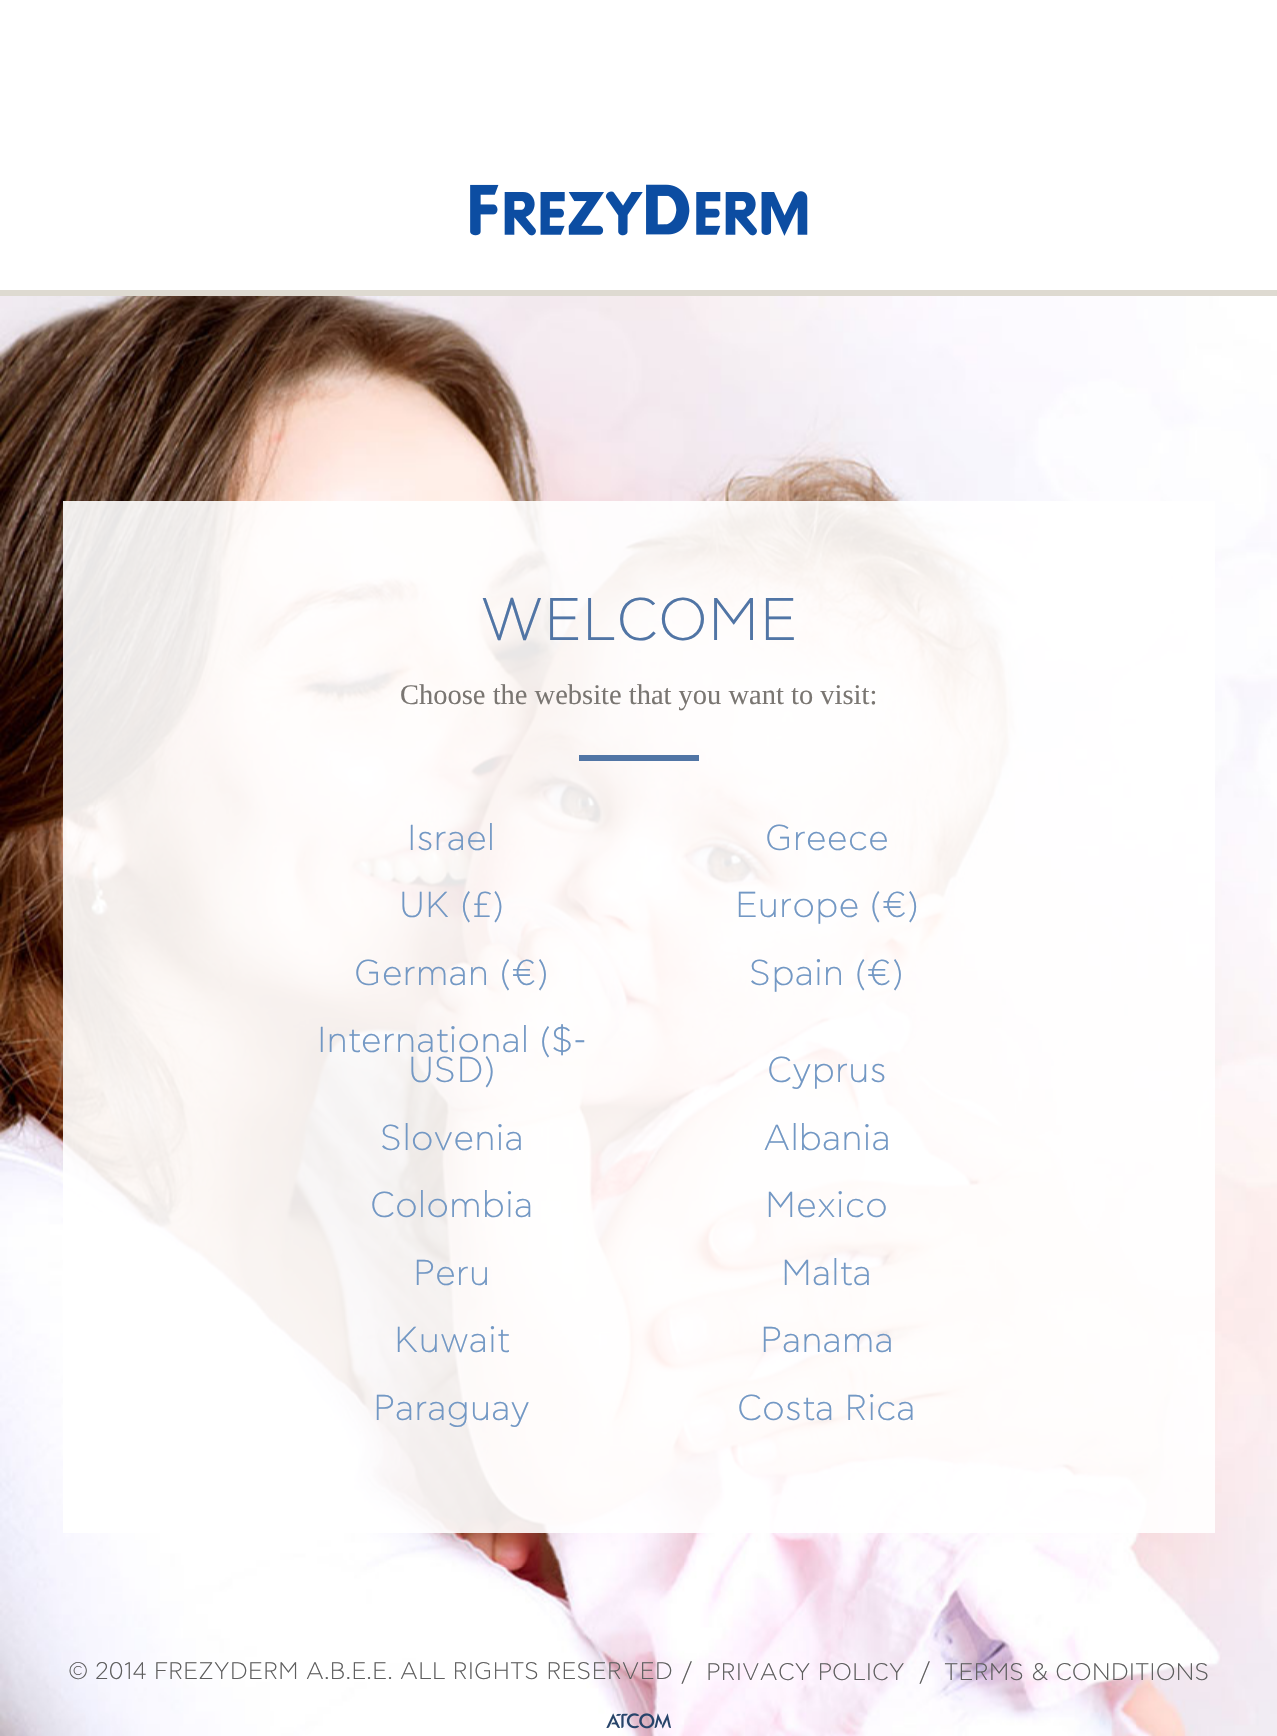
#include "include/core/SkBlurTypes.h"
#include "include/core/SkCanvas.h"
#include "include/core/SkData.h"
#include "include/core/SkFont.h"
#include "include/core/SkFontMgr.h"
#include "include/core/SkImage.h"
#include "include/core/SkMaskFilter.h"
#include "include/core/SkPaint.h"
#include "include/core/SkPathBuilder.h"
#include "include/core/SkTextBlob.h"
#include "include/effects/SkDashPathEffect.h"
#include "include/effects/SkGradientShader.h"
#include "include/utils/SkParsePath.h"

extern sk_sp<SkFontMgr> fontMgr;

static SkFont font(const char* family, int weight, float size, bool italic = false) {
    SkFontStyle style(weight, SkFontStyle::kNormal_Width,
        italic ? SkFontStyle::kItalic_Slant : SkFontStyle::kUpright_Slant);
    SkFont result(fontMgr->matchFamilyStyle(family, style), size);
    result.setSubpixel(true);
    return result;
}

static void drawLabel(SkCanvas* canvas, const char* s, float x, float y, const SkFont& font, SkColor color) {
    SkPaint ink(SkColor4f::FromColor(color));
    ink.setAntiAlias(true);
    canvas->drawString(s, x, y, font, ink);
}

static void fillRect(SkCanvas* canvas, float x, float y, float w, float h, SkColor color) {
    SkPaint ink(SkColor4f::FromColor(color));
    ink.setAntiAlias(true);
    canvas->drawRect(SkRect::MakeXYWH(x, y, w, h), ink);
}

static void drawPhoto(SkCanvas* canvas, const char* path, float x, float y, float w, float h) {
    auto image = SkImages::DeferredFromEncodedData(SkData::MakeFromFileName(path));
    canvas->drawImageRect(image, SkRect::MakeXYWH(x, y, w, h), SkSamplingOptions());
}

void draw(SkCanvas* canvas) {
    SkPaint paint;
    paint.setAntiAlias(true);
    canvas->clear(0xFFFFFFFF);
    fillRect(canvas, 0, 290, 1277, 6, 0xFFDEDAD1);
    drawPhoto(canvas, "assets/img1.png", 470, 184, 338, 52);
    drawPhoto(canvas, "assets/img2.png", 0, 296, 1277, 1440);
    fillRect(canvas, 63, 501, 1152, 1032, 0xE6FFFFFF);
    SkFont font1 = font("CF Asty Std", 300, 60);
    drawLabel(canvas, "WELCOME", 480, 640, font1, 0xFF5175A5);
    SkFont font2 = font("Liberation Serif", 400, 28.5f);
    drawLabel(canvas, "Choose the website that you want to visit:", 400, 704, font2, 0xFF7A7672);
    fillRect(canvas, 579, 755, 120, 6, 0xFF5175A5);
    SkFont font3 = font("CF Asty Std", 300, 36);
    drawLabel(canvas, "Israel", 407, 850, font3, 0xFF7398C4);
    drawLabel(canvas, "Greece", 765, 850, font3, 0xFF7398C4);
    drawLabel(canvas, "UK (£)", 399, 917, font3, 0xFF7398C4);
    drawLabel(canvas, "Europe (€)", 735, 917, font3, 0xFF7398C4);
    drawLabel(canvas, "German (€)", 354, 985, font3, 0xFF7398C4);
    drawLabel(canvas, "Spain (€)", 749, 985, font3, 0xFF7398C4);
    drawLabel(canvas, "International ($-", 317, 1052, font3, 0xFF7398C4);
    drawLabel(canvas, "USD)", 408, 1082, font3, 0xFF7398C4);
    drawLabel(canvas, "Cyprus", 767, 1082, font3, 0xFF7398C4);
    drawLabel(canvas, "Slovenia", 380, 1150, font3, 0xFF7398C4);
    drawLabel(canvas, "Albania", 763, 1150, font3, 0xFF7398C4);
    drawLabel(canvas, "Colombia", 370, 1217, font3, 0xFF7398C4);
    drawLabel(canvas, "Mexico", 765, 1217, font3, 0xFF7398C4);
    drawLabel(canvas, "Peru", 413, 1285, font3, 0xFF7398C4);
    drawLabel(canvas, "Malta", 781, 1285, font3, 0xFF7398C4);
    drawLabel(canvas, "Kuwait", 394, 1352, font3, 0xFF7398C4);
    drawLabel(canvas, "Panama", 760, 1352, font3, 0xFF7398C4);
    drawLabel(canvas, "Paraguay", 373, 1420, font3, 0xFF7398C4);
    drawLabel(canvas, "Costa Rica", 737, 1420, font3, 0xFF7398C4);
    SkFont font4 = font("CF Asty Std", 300, 24);
    drawLabel(canvas, "© 2014 FREZYDERM A.B.Ε.E. ALL RIGHTS RESERVED", 68, 1679, font4, 0xFF5E5E5E);
    drawLabel(canvas, "/", 682, 1680, font4, 0xFF5E5E5E);
    drawLabel(canvas, "PRIVACY POLICY", 706, 1680, font4, 0xFF5E5E5E);
    drawLabel(canvas, "/", 920, 1680, font4, 0xFF5E5E5E);
    drawLabel(canvas, "TERMS & CONDITIONS", 944, 1680, font4, 0xFF5E5E5E);
    drawPhoto(canvas, "assets/img3.png", 606, 1713, 65, 16);
}
